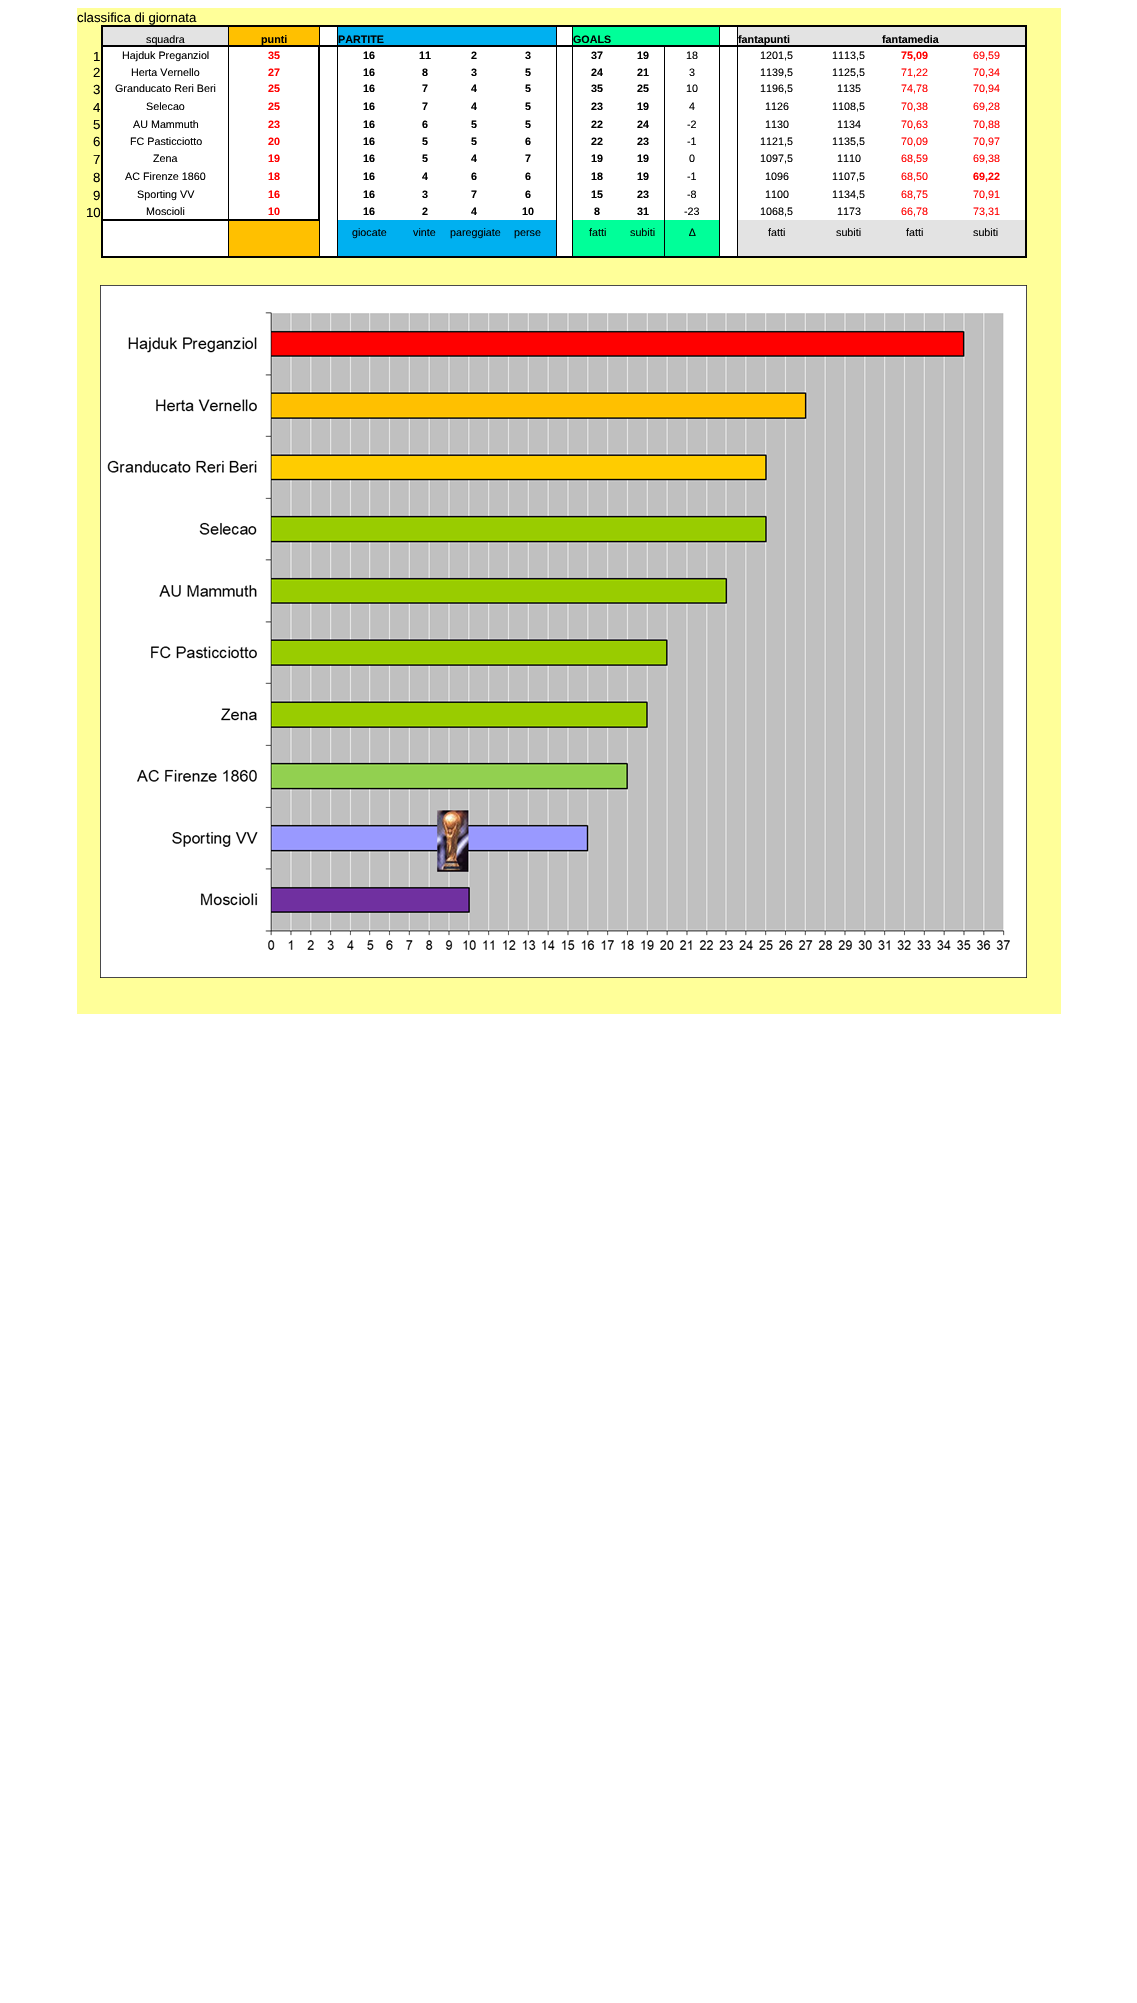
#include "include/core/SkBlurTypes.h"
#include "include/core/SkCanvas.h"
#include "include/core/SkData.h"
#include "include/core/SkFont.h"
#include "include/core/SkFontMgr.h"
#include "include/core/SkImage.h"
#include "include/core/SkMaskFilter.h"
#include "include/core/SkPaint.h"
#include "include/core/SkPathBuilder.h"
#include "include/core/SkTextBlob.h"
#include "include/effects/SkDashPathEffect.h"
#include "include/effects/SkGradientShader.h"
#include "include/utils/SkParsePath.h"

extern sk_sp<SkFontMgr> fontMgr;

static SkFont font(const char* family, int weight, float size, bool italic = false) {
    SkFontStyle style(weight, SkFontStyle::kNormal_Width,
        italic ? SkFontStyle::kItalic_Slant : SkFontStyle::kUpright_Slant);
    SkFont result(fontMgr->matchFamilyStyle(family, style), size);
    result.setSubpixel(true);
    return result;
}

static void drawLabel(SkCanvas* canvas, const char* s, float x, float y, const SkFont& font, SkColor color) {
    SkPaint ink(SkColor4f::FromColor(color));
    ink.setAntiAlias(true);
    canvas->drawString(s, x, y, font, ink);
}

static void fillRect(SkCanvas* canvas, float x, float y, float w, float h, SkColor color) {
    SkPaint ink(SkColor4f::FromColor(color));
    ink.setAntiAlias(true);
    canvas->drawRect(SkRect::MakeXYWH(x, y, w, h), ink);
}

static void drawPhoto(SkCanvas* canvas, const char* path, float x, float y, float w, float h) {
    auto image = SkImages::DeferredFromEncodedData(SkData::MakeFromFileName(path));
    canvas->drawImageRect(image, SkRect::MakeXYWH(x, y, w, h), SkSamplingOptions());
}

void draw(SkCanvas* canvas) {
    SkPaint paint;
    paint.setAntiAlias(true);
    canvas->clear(0xFFFFFFFF);
    fillRect(canvas, 77, 8, 152, 18, 0xFFFFFF99);
    SkFont font1 = font("Liberation Sans", 400, 13.25f);
    drawLabel(canvas, "classifica di giornata", 77, 22, font1, 0xFF000000);
    fillRect(canvas, 229, 8, 797, 17, 0xFFFFFF99);
    fillRect(canvas, 1026, 8, 35, 18, 0xFFFFFF99);
    fillRect(canvas, 228, 26, 1, 231, 0xFF000000);
    fillRect(canvas, 337, 26, 1, 231, 0xFF000000);
    fillRect(canvas, 556, 26, 1, 231, 0xFF000000);
    fillRect(canvas, 572, 26, 1, 231, 0xFF000000);
    fillRect(canvas, 664, 45, 1, 212, 0xFF000000);
    fillRect(canvas, 719, 26, 1, 231, 0xFF000000);
    fillRect(canvas, 737, 26, 1, 231, 0xFF000000);
    fillRect(canvas, 1026, 257, 35, 36, 0xFFFFFF99);
    fillRect(canvas, 1025, 63, 2, 195, 0xFF000000);
    fillRect(canvas, 319, 219, 1, 38, 0xFF000000);
    fillRect(canvas, 77, 257, 25, 36, 0xFFFFFF99);
    fillRect(canvas, 101, 256, 926, 2, 0xFF000000);
    fillRect(canvas, 101, 219, 2, 39, 0xFF000000);
    fillRect(canvas, 338, 238, 218, 18, 0xFF00B0F0);
    fillRect(canvas, 573, 238, 91, 18, 0xFF00FF99);
    fillRect(canvas, 738, 238, 287, 18, 0xFFE3E3E3);
    fillRect(canvas, 77, 26, 24, 231, 0xFFFFFF99);
    fillRect(canvas, 319, 26, 1, 20, 0xFF000000);
    fillRect(canvas, 101, 25, 926, 2, 0xFF000000);
    fillRect(canvas, 621, 45, 406, 2, 0xFF000000);
    fillRect(canvas, 1025, 45, 2, 20, 0xFF000000);
    fillRect(canvas, 1025, 25, 2, 22, 0xFF000000);
    fillRect(canvas, 1027, 26, 34, 231, 0xFFFFFF99);
    fillRect(canvas, 103, 27, 125, 18, 0xFFE3E3E3);
    fillRect(canvas, 101, 45, 522, 2, 0xFF000000);
    fillRect(canvas, 318, 63, 2, 158, 0xFF000000);
    fillRect(canvas, 101, 219, 219, 2, 0xFF000000);
    fillRect(canvas, 101, 63, 2, 158, 0xFF000000);
    fillRect(canvas, 101, 45, 2, 20, 0xFF000000);
    fillRect(canvas, 101, 25, 2, 22, 0xFF000000);
    SkFont font2 = font("Liberation Sans", 400, 10.75f);
    drawLabel(canvas, "squadra", 146, 43, font2, 0xFF000000);
    fillRect(canvas, 229, 27, 90, 18, 0xFFFFC000);
    SkFont font3 = font("Liberation Sans", 700, 10.75f);
    drawLabel(canvas, "punti", 261, 43, font3, 0xFF000000);
    fillRect(canvas, 338, 27, 218, 18, 0xFF00B0F0);
    drawLabel(canvas, "PARTITE", 338, 43, font3, 0xFF000000);
    fillRect(canvas, 573, 27, 146, 18, 0xFF00FF99);
    drawLabel(canvas, "GOALS", 573, 43, font3, 0xFF000000);
    fillRect(canvas, 738, 27, 287, 18, 0xFFE3E3E3);
    drawLabel(canvas, "fantapunti", 738, 43, font3, 0xFF000000);
    drawLabel(canvas, "fantamedia", 882, 43, font3, 0xFF000000);
    drawLabel(canvas, "1", 93, 61, font1, 0xFF000000);
    drawLabel(canvas, "Hajduk Preganziol", 122, 59, font2, 0xFF000000);
    fillRect(canvas, 318, 45, 2, 20, 0xFF000000);
    drawLabel(canvas, "35", 268, 59, font3, 0xFFFF0000);
    drawLabel(canvas, "16", 363, 59, font3, 0xFF000000);
    drawLabel(canvas, "11", 419, 59, font3, 0xFF000000);
    drawLabel(canvas, "2", 471, 59, font3, 0xFF000000);
    drawLabel(canvas, "3", 525, 59, font3, 0xFF000000);
    drawLabel(canvas, "37", 591, 59, font3, 0xFF000000);
    drawLabel(canvas, "19", 637, 59, font3, 0xFF000000);
    drawLabel(canvas, "18", 686, 59, font2, 0xFF000000);
    drawLabel(canvas, "1201,5", 760, 59, font2, 0xFF000000);
    drawLabel(canvas, "1113,5", 832, 59, font2, 0xFF000000);
    drawLabel(canvas, "75,09", 901, 59, font3, 0xFFFF0000);
    drawLabel(canvas, "69,59", 973, 59, font2, 0xFFFF0000);
    drawLabel(canvas, "2", 93, 77, font1, 0xFF000000);
    drawLabel(canvas, "Herta Vernello", 131, 76, font2, 0xFF000000);
    drawLabel(canvas, "27", 268, 76, font3, 0xFFFF0000);
    drawLabel(canvas, "16", 363, 76, font3, 0xFF000000);
    drawLabel(canvas, "8", 422, 76, font3, 0xFF000000);
    drawLabel(canvas, "3", 471, 76, font3, 0xFF000000);
    drawLabel(canvas, "5", 525, 76, font3, 0xFF000000);
    drawLabel(canvas, "24", 591, 76, font3, 0xFF000000);
    drawLabel(canvas, "21", 637, 76, font3, 0xFF000000);
    drawLabel(canvas, "3", 689, 76, font2, 0xFF000000);
    drawLabel(canvas, "1139,5", 760, 76, font2, 0xFF000000);
    drawLabel(canvas, "1125,5", 832, 76, font2, 0xFF000000);
    drawLabel(canvas, "71,22", 901, 76, font2, 0xFFFF0000);
    drawLabel(canvas, "70,34", 973, 76, font2, 0xFFFF0000);
    drawLabel(canvas, "3", 93, 94, font1, 0xFF000000);
    drawLabel(canvas, "Granducato Reri Beri", 115, 92, font2, 0xFF000000);
    drawLabel(canvas, "25", 268, 92, font3, 0xFFFF0000);
    drawLabel(canvas, "16", 363, 92, font3, 0xFF000000);
    drawLabel(canvas, "7", 422, 92, font3, 0xFF000000);
    drawLabel(canvas, "4", 471, 92, font3, 0xFF000000);
    drawLabel(canvas, "5", 525, 92, font3, 0xFF000000);
    drawLabel(canvas, "35", 591, 92, font3, 0xFF000000);
    drawLabel(canvas, "25", 637, 92, font3, 0xFF000000);
    drawLabel(canvas, "10", 686, 92, font2, 0xFF000000);
    drawLabel(canvas, "1196,5", 760, 92, font2, 0xFF000000);
    drawLabel(canvas, "1135", 837, 92, font2, 0xFF000000);
    drawLabel(canvas, "74,78", 901, 92, font2, 0xFFFF0000);
    drawLabel(canvas, "70,94", 973, 92, font2, 0xFFFF0000);
    drawLabel(canvas, "4", 93, 112, font1, 0xFF000000);
    drawLabel(canvas, "Selecao", 146, 110, font2, 0xFF000000);
    drawLabel(canvas, "25", 268, 110, font3, 0xFFFF0000);
    drawLabel(canvas, "16", 363, 110, font3, 0xFF000000);
    drawLabel(canvas, "7", 422, 110, font3, 0xFF000000);
    drawLabel(canvas, "4", 471, 110, font3, 0xFF000000);
    drawLabel(canvas, "5", 525, 110, font3, 0xFF000000);
    drawLabel(canvas, "23", 591, 110, font3, 0xFF000000);
    drawLabel(canvas, "19", 637, 110, font3, 0xFF000000);
    drawLabel(canvas, "4", 689, 110, font2, 0xFF000000);
    drawLabel(canvas, "1126", 765, 110, font2, 0xFF000000);
    drawLabel(canvas, "1108,5", 832, 110, font2, 0xFF000000);
    drawLabel(canvas, "70,38", 901, 110, font2, 0xFFFF0000);
    drawLabel(canvas, "69,28", 973, 110, font2, 0xFFFF0000);
    drawLabel(canvas, "5", 93, 129, font1, 0xFF000000);
    drawLabel(canvas, "AU Mammuth", 133, 128, font2, 0xFF000000);
    drawLabel(canvas, "23", 268, 128, font3, 0xFFFF0000);
    drawLabel(canvas, "16", 363, 128, font3, 0xFF000000);
    drawLabel(canvas, "6", 422, 128, font3, 0xFF000000);
    drawLabel(canvas, "5", 471, 128, font3, 0xFF000000);
    drawLabel(canvas, "5", 525, 128, font3, 0xFF000000);
    drawLabel(canvas, "22", 591, 128, font3, 0xFF000000);
    drawLabel(canvas, "24", 637, 128, font3, 0xFF000000);
    drawLabel(canvas, "-2", 687, 128, font2, 0xFF000000);
    drawLabel(canvas, "1130", 765, 128, font2, 0xFF000000);
    drawLabel(canvas, "1134", 837, 128, font2, 0xFF000000);
    drawLabel(canvas, "70,63", 901, 128, font2, 0xFFFF0000);
    drawLabel(canvas, "70,88", 973, 128, font2, 0xFFFF0000);
    drawLabel(canvas, "6", 93, 146, font1, 0xFF000000);
    drawLabel(canvas, "FC Pasticciotto", 130, 145, font2, 0xFF000000);
    drawLabel(canvas, "20", 268, 145, font3, 0xFFFF0000);
    drawLabel(canvas, "16", 363, 145, font3, 0xFF000000);
    drawLabel(canvas, "5", 422, 145, font3, 0xFF000000);
    drawLabel(canvas, "5", 471, 145, font3, 0xFF000000);
    drawLabel(canvas, "6", 525, 145, font3, 0xFF000000);
    drawLabel(canvas, "22", 591, 145, font3, 0xFF000000);
    drawLabel(canvas, "23", 637, 145, font3, 0xFF000000);
    drawLabel(canvas, "-1", 687, 145, font2, 0xFF000000);
    drawLabel(canvas, "1121,5", 760, 145, font2, 0xFF000000);
    drawLabel(canvas, "1135,5", 832, 145, font2, 0xFF000000);
    drawLabel(canvas, "70,09", 901, 145, font2, 0xFFFF0000);
    drawLabel(canvas, "70,97", 973, 145, font2, 0xFFFF0000);
    drawLabel(canvas, "7", 93, 164, font1, 0xFF000000);
    drawLabel(canvas, "Zena", 153, 162, font2, 0xFF000000);
    drawLabel(canvas, "19", 268, 162, font3, 0xFFFF0000);
    drawLabel(canvas, "16", 363, 162, font3, 0xFF000000);
    drawLabel(canvas, "5", 422, 162, font3, 0xFF000000);
    drawLabel(canvas, "4", 471, 162, font3, 0xFF000000);
    drawLabel(canvas, "7", 525, 162, font3, 0xFF000000);
    drawLabel(canvas, "19", 591, 162, font3, 0xFF000000);
    drawLabel(canvas, "19", 637, 162, font3, 0xFF000000);
    drawLabel(canvas, "0", 689, 162, font2, 0xFF000000);
    drawLabel(canvas, "1097,5", 760, 162, font2, 0xFF000000);
    drawLabel(canvas, "1110", 837, 162, font2, 0xFF000000);
    drawLabel(canvas, "68,59", 901, 162, font2, 0xFFFF0000);
    drawLabel(canvas, "69,38", 973, 162, font2, 0xFFFF0000);
    drawLabel(canvas, "8", 93, 182, font1, 0xFF000000);
    drawLabel(canvas, "AC Firenze 1860", 125, 180, font2, 0xFF000000);
    drawLabel(canvas, "18", 268, 180, font3, 0xFFFF0000);
    drawLabel(canvas, "16", 363, 180, font3, 0xFF000000);
    drawLabel(canvas, "4", 422, 180, font3, 0xFF000000);
    drawLabel(canvas, "6", 471, 180, font3, 0xFF000000);
    drawLabel(canvas, "6", 525, 180, font3, 0xFF000000);
    drawLabel(canvas, "18", 591, 180, font3, 0xFF000000);
    drawLabel(canvas, "19", 637, 180, font3, 0xFF000000);
    drawLabel(canvas, "-1", 687, 180, font2, 0xFF000000);
    drawLabel(canvas, "1096", 765, 180, font2, 0xFF000000);
    drawLabel(canvas, "1107,5", 832, 180, font2, 0xFF000000);
    drawLabel(canvas, "68,50", 901, 180, font2, 0xFFFF0000);
    drawLabel(canvas, "69,22", 973, 180, font3, 0xFFFF0000);
    drawLabel(canvas, "9", 93, 200, font1, 0xFF000000);
    drawLabel(canvas, "Sporting VV", 137, 198, font2, 0xFF000000);
    drawLabel(canvas, "16", 268, 198, font3, 0xFFFF0000);
    drawLabel(canvas, "16", 363, 198, font3, 0xFF000000);
    drawLabel(canvas, "3", 422, 198, font3, 0xFF000000);
    drawLabel(canvas, "7", 471, 198, font3, 0xFF000000);
    drawLabel(canvas, "6", 525, 198, font3, 0xFF000000);
    drawLabel(canvas, "15", 591, 198, font3, 0xFF000000);
    drawLabel(canvas, "23", 637, 198, font3, 0xFF000000);
    drawLabel(canvas, "-8", 687, 198, font2, 0xFF000000);
    drawLabel(canvas, "1100", 765, 198, font2, 0xFF000000);
    drawLabel(canvas, "1134,5", 832, 198, font2, 0xFF000000);
    drawLabel(canvas, "68,75", 901, 198, font2, 0xFFFF0000);
    drawLabel(canvas, "70,91", 973, 198, font2, 0xFFFF0000);
    drawLabel(canvas, "10", 86, 217, font1, 0xFF000000);
    drawLabel(canvas, "Moscioli", 146, 215, font2, 0xFF000000);
    drawLabel(canvas, "10", 268, 215, font3, 0xFFFF0000);
    drawLabel(canvas, "16", 363, 215, font3, 0xFF000000);
    drawLabel(canvas, "2", 422, 215, font3, 0xFF000000);
    drawLabel(canvas, "4", 471, 215, font3, 0xFF000000);
    drawLabel(canvas, "10", 522, 215, font3, 0xFF000000);
    drawLabel(canvas, "8", 594, 215, font3, 0xFF000000);
    drawLabel(canvas, "31", 637, 215, font3, 0xFF000000);
    drawLabel(canvas, "-23", 684, 215, font2, 0xFF000000);
    drawLabel(canvas, "1068,5", 760, 215, font2, 0xFF000000);
    drawLabel(canvas, "1173", 837, 215, font2, 0xFF000000);
    drawLabel(canvas, "66,78", 901, 215, font2, 0xFFFF0000);
    drawLabel(canvas, "73,31", 973, 215, font2, 0xFFFF0000);
    fillRect(canvas, 229, 221, 90, 35, 0xFFFFC000);
    fillRect(canvas, 338, 220, 218, 18, 0xFF00B0F0);
    drawLabel(canvas, "giocate", 352, 236, font2, 0xFF000000);
    drawLabel(canvas, "vinte", 413, 236, font2, 0xFF000000);
    drawLabel(canvas, "pareggiate", 450, 236, font2, 0xFF000000);
    drawLabel(canvas, "perse", 514, 236, font2, 0xFF000000);
    fillRect(canvas, 573, 220, 91, 18, 0xFF00FF99);
    drawLabel(canvas, "fatti", 589, 236, font2, 0xFF000000);
    drawLabel(canvas, "subiti", 630, 236, font2, 0xFF000000);
    fillRect(canvas, 665, 220, 54, 36, 0xFF00FF99);
    drawLabel(canvas, "∆", 689, 236, font2, 0xFF000000);
    fillRect(canvas, 738, 220, 287, 18, 0xFFE3E3E3);
    drawLabel(canvas, "fatti", 768, 236, font2, 0xFF000000);
    drawLabel(canvas, "subiti", 836, 236, font2, 0xFF000000);
    drawLabel(canvas, "fatti", 906, 236, font2, 0xFF000000);
    drawLabel(canvas, "subiti", 973, 236, font2, 0xFF000000);
    fillRect(canvas, 102, 258, 924, 17, 0xFFFFFF99);
    fillRect(canvas, 102, 275, 924, 10, 0xFFFFFF99);
    fillRect(canvas, 77, 961, 25, 53, 0xFFFFFF99);
    fillRect(canvas, 1026, 961, 35, 18, 0xFFFFFF99);
    drawPhoto(canvas, "assets/img1.png", 100, 285, 927, 693);
    fillRect(canvas, 77, 293, 23, 668, 0xFFFFFF99);
    fillRect(canvas, 1027, 293, 34, 668, 0xFFFFFF99);
    fillRect(canvas, 102, 978, 924, 1, 0xFFFFFF99);
    fillRect(canvas, 102, 979, 959, 17, 0xFFFFFF99);
    fillRect(canvas, 102, 996, 959, 18, 0xFFFFFF99);
}
